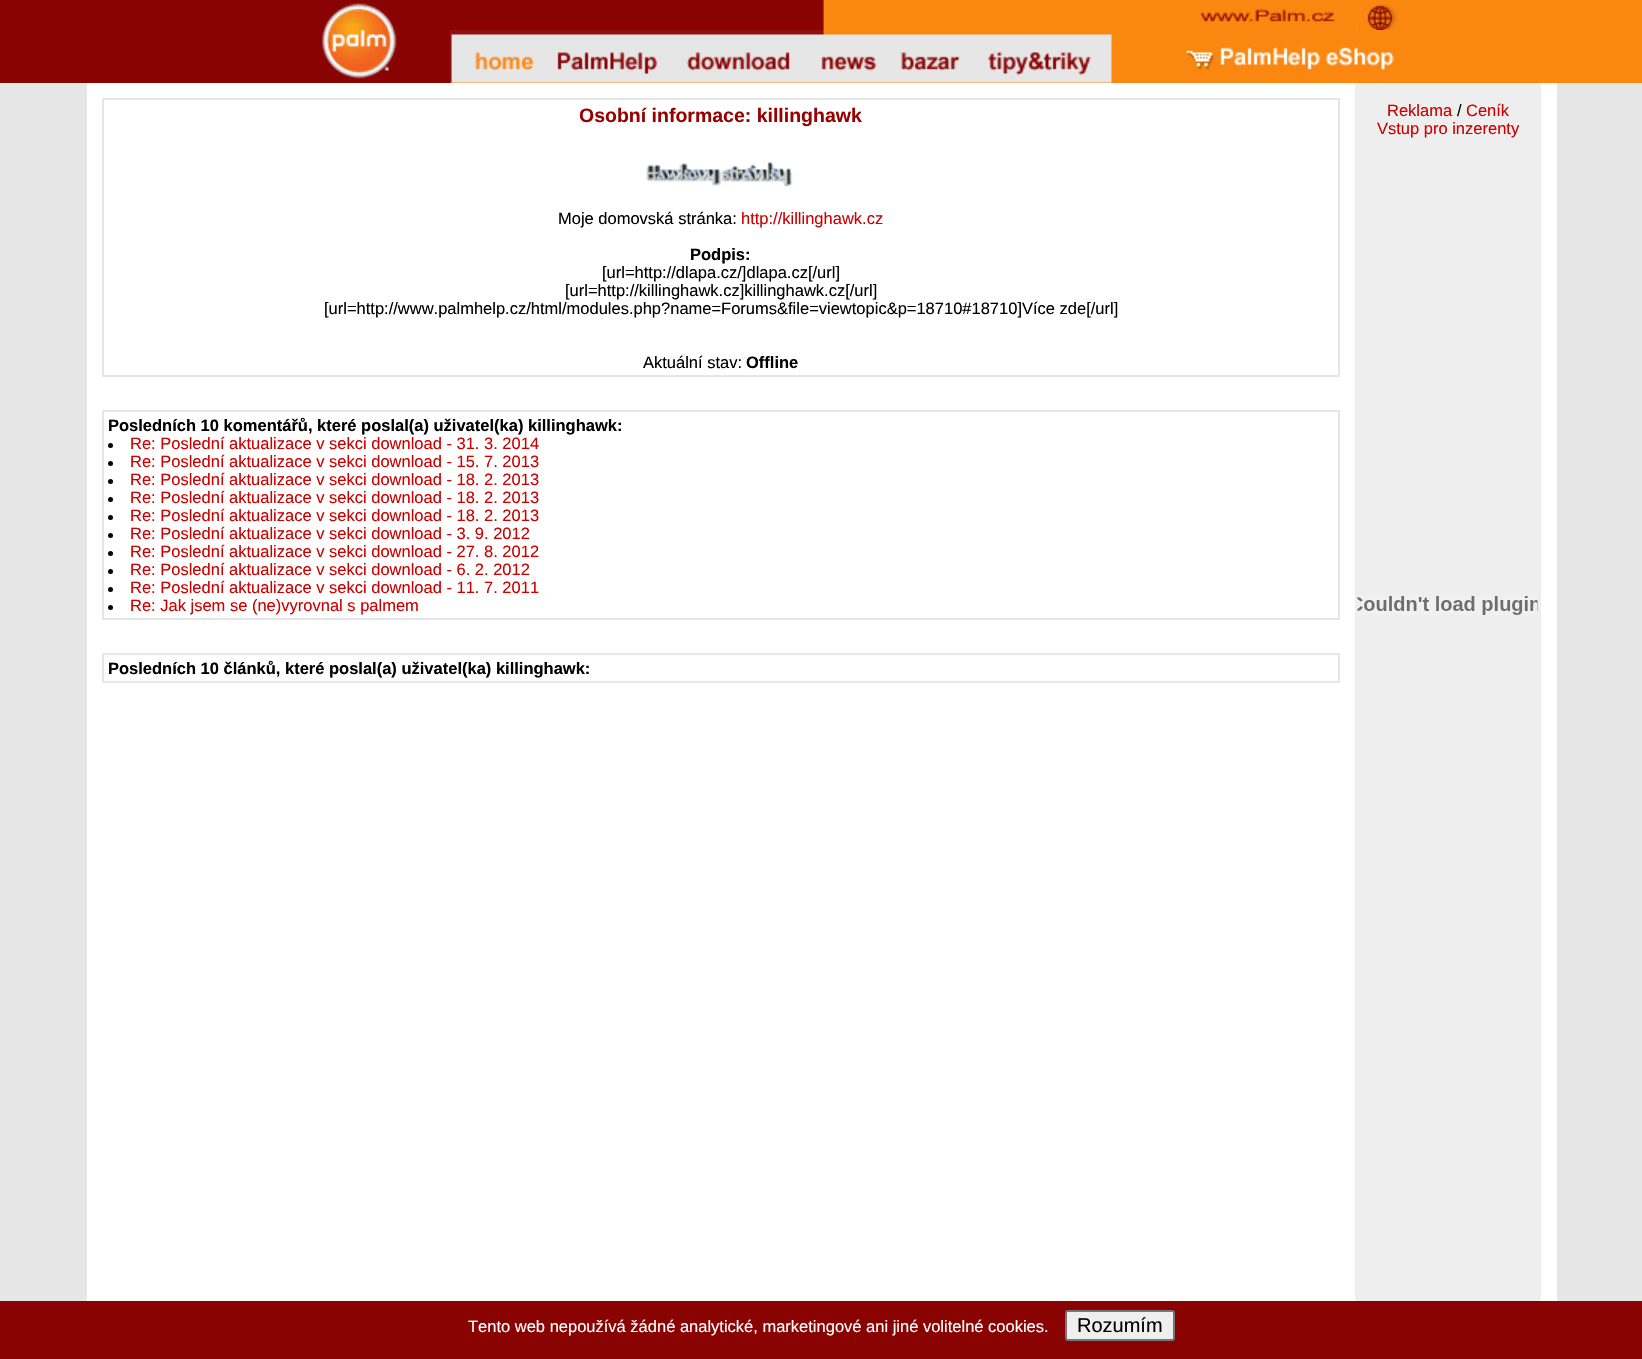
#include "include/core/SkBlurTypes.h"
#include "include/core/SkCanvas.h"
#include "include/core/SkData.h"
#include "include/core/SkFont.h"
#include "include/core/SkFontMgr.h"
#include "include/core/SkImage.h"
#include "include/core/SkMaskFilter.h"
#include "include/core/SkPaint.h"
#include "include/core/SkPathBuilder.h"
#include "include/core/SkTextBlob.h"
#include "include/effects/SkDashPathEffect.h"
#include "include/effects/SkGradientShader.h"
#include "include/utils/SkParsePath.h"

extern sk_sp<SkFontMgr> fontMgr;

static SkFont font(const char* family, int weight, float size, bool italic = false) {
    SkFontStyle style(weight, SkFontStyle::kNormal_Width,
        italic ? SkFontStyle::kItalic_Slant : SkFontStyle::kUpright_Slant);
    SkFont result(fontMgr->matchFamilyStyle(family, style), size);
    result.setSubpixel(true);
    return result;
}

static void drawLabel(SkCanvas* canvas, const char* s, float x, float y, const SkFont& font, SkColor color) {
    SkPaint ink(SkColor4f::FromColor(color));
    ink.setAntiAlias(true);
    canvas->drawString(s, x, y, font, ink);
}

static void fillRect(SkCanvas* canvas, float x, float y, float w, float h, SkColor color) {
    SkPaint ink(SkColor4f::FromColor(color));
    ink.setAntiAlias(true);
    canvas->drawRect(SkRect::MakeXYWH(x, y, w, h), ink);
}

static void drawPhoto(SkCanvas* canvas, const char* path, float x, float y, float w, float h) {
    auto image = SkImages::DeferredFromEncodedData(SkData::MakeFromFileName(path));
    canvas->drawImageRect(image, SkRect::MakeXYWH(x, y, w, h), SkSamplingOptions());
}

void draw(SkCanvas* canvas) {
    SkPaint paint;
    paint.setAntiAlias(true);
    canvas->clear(0xFFE6E6E6);
    fillRect(canvas, 0, 0, 450, 83, 0xFF8A0303);
    drawPhoto(canvas, "assets/img1.png", 322, 2, 75, 77);
    drawPhoto(canvas, "assets/img2.png", 450, 0, 909, 30);
    drawPhoto(canvas, "assets/img3.png", 1359, 0, 45, 30);
    fillRect(canvas, 450, 30, 954, 53, 0xFFFA8710);
    drawPhoto(canvas, "assets/img4.png", 450, 30, 944, 53);
    fillRect(canvas, 1404, 0, 238, 83, 0xFFFA8710);
    fillRect(canvas, 87, 83, 1268, 1218, 0xFFFFFFFF);
    fillRect(canvas, 1355, 83, 186, 1218, 0xFFEEEEEE);
    SkFont font1 = font("Liberation Sans", 400, 16.5f);
    drawLabel(canvas, "Reklama", 1387, 116, font1, 0xFFCC0000);
    drawLabel(canvas, "/", 1457, 116, font1, 0xFF000000);
    drawLabel(canvas, "Ceník", 1466, 116, font1, 0xFFCC0000);
    drawLabel(canvas, "Vstup pro inzerenty", 1377, 134, font1, 0xFFCC0000);
    drawPhoto(canvas, "assets/img5.png", 1357, 596, 181, 19);
    fillRect(canvas, 1541, 83, 16, 1218, 0xFFFFFFFF);
    paint.setStroke(true);
    paint.setStrokeWidth(2);
    paint.setColor(0xFFE6E6E6);
    canvas->drawRect(SkRect::MakeXYWH(103, 99, 1236, 277), paint);
    SkFont font2 = font("Liberation Sans", 700, 19.5f);
    drawLabel(canvas, "Osobní informace: killinghawk", 579, 122, font2, 0xFF990000);
    drawPhoto(canvas, "assets/img6.png", 646, 162, 147, 25);
    drawLabel(canvas, "Moje domovská stránka:", 558, 224, font1, 0xFF000000);
    drawLabel(canvas, "http://killinghawk.cz", 741, 224, font1, 0xFFCC0000);
    SkFont font3 = font("Liberation Sans", 700, 16.5f);
    drawLabel(canvas, "Podpis:", 690, 260, font3, 0xFF000000);
    drawLabel(canvas, "[url=http://dlapa.cz/]dlapa.cz[/url]", 602, 278, font1, 0xFF000000);
    drawLabel(canvas, "[url=http://killinghawk.cz]killinghawk.cz[/url]", 565, 296, font1, 0xFF000000);
    drawLabel(canvas, "[url=http://www.palmhelp.cz/html/modules.php?name=Forums&file=viewtopic&p=18710#18710]Více zde[/url]", 324, 314, font1, 0xFF000000);
    drawLabel(canvas, "Aktuální stav:", 643, 368, font1, 0xFF000000);
    drawLabel(canvas, "Offline", 746, 368, font3, 0xFF000000);
    canvas->drawRect(SkRect::MakeXYWH(103, 411, 1236, 208), paint);
    drawLabel(canvas, "Posledních 10 komentářů, které poslal(a) uživatel(ka) killinghawk:", 108, 431, font3, 0xFF000000);
    paint.setStroke(false);
    paint.setColor(0xFF000000);
    canvas->drawCircle(110.5f, 445.5f, 2.5f, paint);
    drawLabel(canvas, "Re: Poslední aktualizace v sekci download - 31. 3. 2014", 130, 449, font1, 0xFFCC0000);
    canvas->drawCircle(110.5f, 463.5f, 2.5f, paint);
    drawLabel(canvas, "Re: Poslední aktualizace v sekci download - 15. 7. 2013", 130, 467, font1, 0xFFCC0000);
    canvas->drawCircle(110.5f, 481.5f, 2.5f, paint);
    drawLabel(canvas, "Re: Poslední aktualizace v sekci download - 18. 2. 2013", 130, 485, font1, 0xFFCC0000);
    canvas->drawCircle(110.5f, 499.5f, 2.5f, paint);
    drawLabel(canvas, "Re: Poslední aktualizace v sekci download - 18. 2. 2013", 130, 503, font1, 0xFFCC0000);
    canvas->drawCircle(110.5f, 517.5f, 2.5f, paint);
    drawLabel(canvas, "Re: Poslední aktualizace v sekci download - 18. 2. 2013", 130, 521, font1, 0xFFCC0000);
    canvas->drawCircle(110.5f, 535.5f, 2.5f, paint);
    drawLabel(canvas, "Re: Poslední aktualizace v sekci download - 3. 9. 2012", 130, 539, font1, 0xFFCC0000);
    canvas->drawCircle(110.5f, 553.5f, 2.5f, paint);
    drawLabel(canvas, "Re: Poslední aktualizace v sekci download - 27. 8. 2012", 130, 557, font1, 0xFFCC0000);
    canvas->drawCircle(110.5f, 571.5f, 2.5f, paint);
    drawLabel(canvas, "Re: Poslední aktualizace v sekci download - 6. 2. 2012", 130, 575, font1, 0xFFCC0000);
    canvas->drawCircle(110.5f, 589.5f, 2.5f, paint);
    drawLabel(canvas, "Re: Poslední aktualizace v sekci download - 11. 7. 2011", 130, 593, font1, 0xFFCC0000);
    canvas->drawCircle(110.5f, 607.5f, 2.5f, paint);
    drawLabel(canvas, "Re: Jak jsem se (ne)vyrovnal s palmem", 130, 611, font1, 0xFFCC0000);
    paint.setStroke(true);
    paint.setColor(0xFFE6E6E6);
    canvas->drawRect(SkRect::MakeXYWH(103, 654, 1236, 28), paint);
    drawLabel(canvas, "Posledních 10 článků, které poslal(a) uživatel(ka) killinghawk:", 108, 674, font3, 0xFF000000);
    fillRect(canvas, 0, 1301, 1642, 58, 0xFF8A0303);
    drawLabel(canvas, "Tento web nepoužívá žádné analytické, marketingové ani jiné volitelné cookies.", 468, 1332, font1, 0xFFFFFFFF);
    paint.setStroke(false);
    paint.setColor(0xFFEFEFEF);
    canvas->drawRoundRect(SkRect::MakeXYWH(1066, 1311, 108, 29), 2, 2, paint);
    paint.setStroke(true);
    paint.setColor(0xFF767676);
    canvas->drawRoundRect(SkRect::MakeXYWH(1066, 1311, 108, 29), 2, 2, paint);
    SkFont font4 = font("Liberation Sans", 400, 20);
    drawLabel(canvas, "Rozumím", 1077, 1332, font4, 0xFF000000);
}
